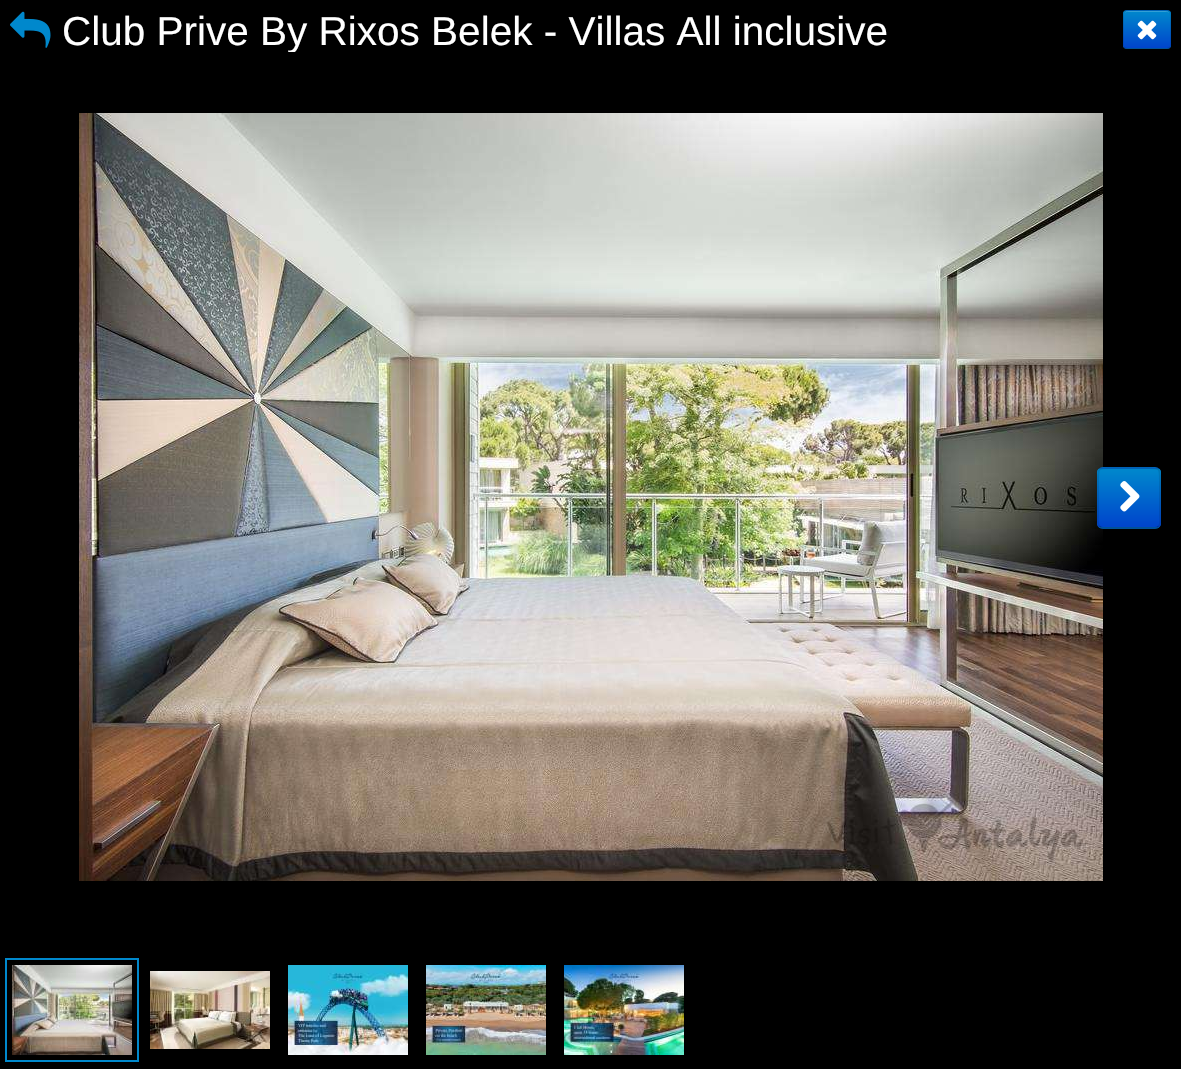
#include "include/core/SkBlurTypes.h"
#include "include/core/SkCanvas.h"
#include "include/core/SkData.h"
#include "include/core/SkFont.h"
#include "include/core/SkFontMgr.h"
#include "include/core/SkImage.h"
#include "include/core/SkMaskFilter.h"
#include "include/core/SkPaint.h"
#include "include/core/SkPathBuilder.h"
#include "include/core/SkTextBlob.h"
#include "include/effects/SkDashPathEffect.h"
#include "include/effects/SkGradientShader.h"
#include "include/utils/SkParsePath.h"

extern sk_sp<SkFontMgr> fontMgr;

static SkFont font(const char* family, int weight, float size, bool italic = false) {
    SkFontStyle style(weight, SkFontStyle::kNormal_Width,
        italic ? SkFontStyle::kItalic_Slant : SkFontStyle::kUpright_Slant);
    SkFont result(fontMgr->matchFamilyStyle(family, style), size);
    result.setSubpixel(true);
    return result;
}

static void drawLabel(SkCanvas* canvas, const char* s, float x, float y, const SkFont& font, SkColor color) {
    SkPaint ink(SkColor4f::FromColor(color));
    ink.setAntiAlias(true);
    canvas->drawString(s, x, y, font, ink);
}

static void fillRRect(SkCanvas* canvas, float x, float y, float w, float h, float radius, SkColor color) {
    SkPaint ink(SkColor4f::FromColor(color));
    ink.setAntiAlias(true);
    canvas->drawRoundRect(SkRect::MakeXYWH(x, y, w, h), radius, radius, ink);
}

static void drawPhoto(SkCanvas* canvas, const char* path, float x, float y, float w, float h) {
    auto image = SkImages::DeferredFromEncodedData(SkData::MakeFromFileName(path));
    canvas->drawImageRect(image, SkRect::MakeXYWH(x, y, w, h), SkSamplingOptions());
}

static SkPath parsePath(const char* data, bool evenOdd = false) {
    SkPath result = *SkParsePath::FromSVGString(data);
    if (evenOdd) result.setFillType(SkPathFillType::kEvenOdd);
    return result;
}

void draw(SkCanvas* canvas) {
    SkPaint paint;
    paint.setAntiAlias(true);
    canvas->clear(0xFF000000);
    drawPhoto(canvas, "assets/img1.png", 10, 11, 41, 37);
    canvas->save();
    canvas->clipRect(SkRect::MakeXYWH(0, 10, 1181, 42));
    SkFont font1 = font("Liberation Sans", 400, 40.5f);
    drawLabel(canvas, "Club Prive By Rixos Belek - Villas All inclusive", 62, 45, font1, 0xFFFFFFFF);
    canvas->restore();
    fillRRect(canvas, 1123, 10, 48, 39, 4, 0xFF006DCC);
    canvas->save();
    canvas->clipPath(parsePath("M1127 10H1167C1169 10 1171 12 1171 14V45C1171 47 1169 49 1167 49H1127C1125 49 1123 47 1123 45V14C1123 12 1125 10 1127 10Z"), true);
    {
        const SkColor colors[] = {0xFF0088CC, 0xFF0044CC};
        const float stops[] = {0, 1};
        const SkPoint ends[] = {{1147, 11}, {1147, 48}};
        paint.setShader(SkGradientShader::MakeLinear(ends, colors, stops, 2, SkTileMode::kClamp));
        paint.setAlpha(255);
    }
    canvas->drawRect(SkRect::MakeXYWH(1123, 11, 48, 37), paint);
    canvas->restore();
    paint.setShader(nullptr);
    paint.setColor(0xFF339FD6);
    canvas->drawPath(parsePath("M1127 12H1167C1169 12 1170 13 1170 15C1170 10 1165 11 1160 11H1134C1129 11 1124 10 1124 15C1124 13 1125 12 1127 12Z"), paint);
    paint.setStroke(true);
    paint.setStrokeWidth(1);
    paint.setColor(0x40000000);
    canvas->drawPath(parsePath("M1169.5 47.5C1169 48 1168 48.5 1167 48.5H1127C1126 48.5 1125 48 1124.5 47.5"), paint);
    paint.setColor(0x1A000000);
    canvas->drawPath(parsePath("M1124.5 47.5C1122.5 45.5 1123.5 41.5 1123.5 40V19C1123.5 9.5 1124 10.5 1133.5 10.5H1160.5C1170 10.5 1170.5 9.5 1170.5 19V40C1170.5 41.5 1171.5 45.5 1169.5 47.5"), paint);
    drawPhoto(canvas, "assets/img2.png", 1137, 20, 20, 20);
    drawPhoto(canvas, "assets/img3.png", 79, 113, 1024, 768);
    fillRRect(canvas, 1097, 467, 64, 62, 6, 0xFF006DCC);
    canvas->save();
    canvas->clipPath(parsePath("M1103 467H1155C1158.5 467 1161 469.5 1161 473V523C1161 526.5 1158.5 529 1155 529H1103C1099.5 529 1097 526.5 1097 523V473C1097 469.5 1099.5 467 1103 467Z"), true);
    paint.setStroke(false);
    {
        const SkColor colors[] = {0xFF0088CC, 0xFF0044CC};
        const float stops[] = {0, 1};
        const SkPoint ends[] = {{1129, 469}, {1129, 527}};
        paint.setShader(SkGradientShader::MakeLinear(ends, colors, stops, 2, SkTileMode::kClamp));
        paint.setAlpha(255);
    }
    canvas->drawRect(SkRect::MakeXYWH(1097, 469, 64, 58), paint);
    canvas->restore();
    paint.setStroke(true);
    paint.setStrokeWidth(2);
    paint.setShader(nullptr);
    paint.setColor(0x40000000);
    canvas->drawPath(parsePath("M1158.5 526.5C1157.5 527.5 1156.5 528 1155 528H1103C1101.5 528 1100.5 527.5 1099.5 526.5"), paint);
    paint.setColor(0x1A000000);
    canvas->drawPath(parsePath("M1099.5 526.5C1096.5 524 1098 517 1098 514.5V481.5C1098 467 1097.5 468 1111.5 468H1146.5C1160.5 468 1160 467 1160 481.5V514.5C1160 517 1161.5 524 1158.5 526.5"), paint);
    drawPhoto(canvas, "assets/img4.png", 1120, 481, 20, 31);
    paint.setColor(0xFF0088CC);
    canvas->drawRect(SkRect::MakeXYWH(6, 959, 132, 102), paint);
    drawPhoto(canvas, "assets/img5.png", 12, 965, 120, 90);
    drawPhoto(canvas, "assets/img6.png", 150, 971, 120, 78);
    drawPhoto(canvas, "assets/img7.png", 288, 965, 120, 90);
    drawPhoto(canvas, "assets/img8.png", 426, 965, 120, 90);
    drawPhoto(canvas, "assets/img9.png", 564, 965, 120, 90);
}
